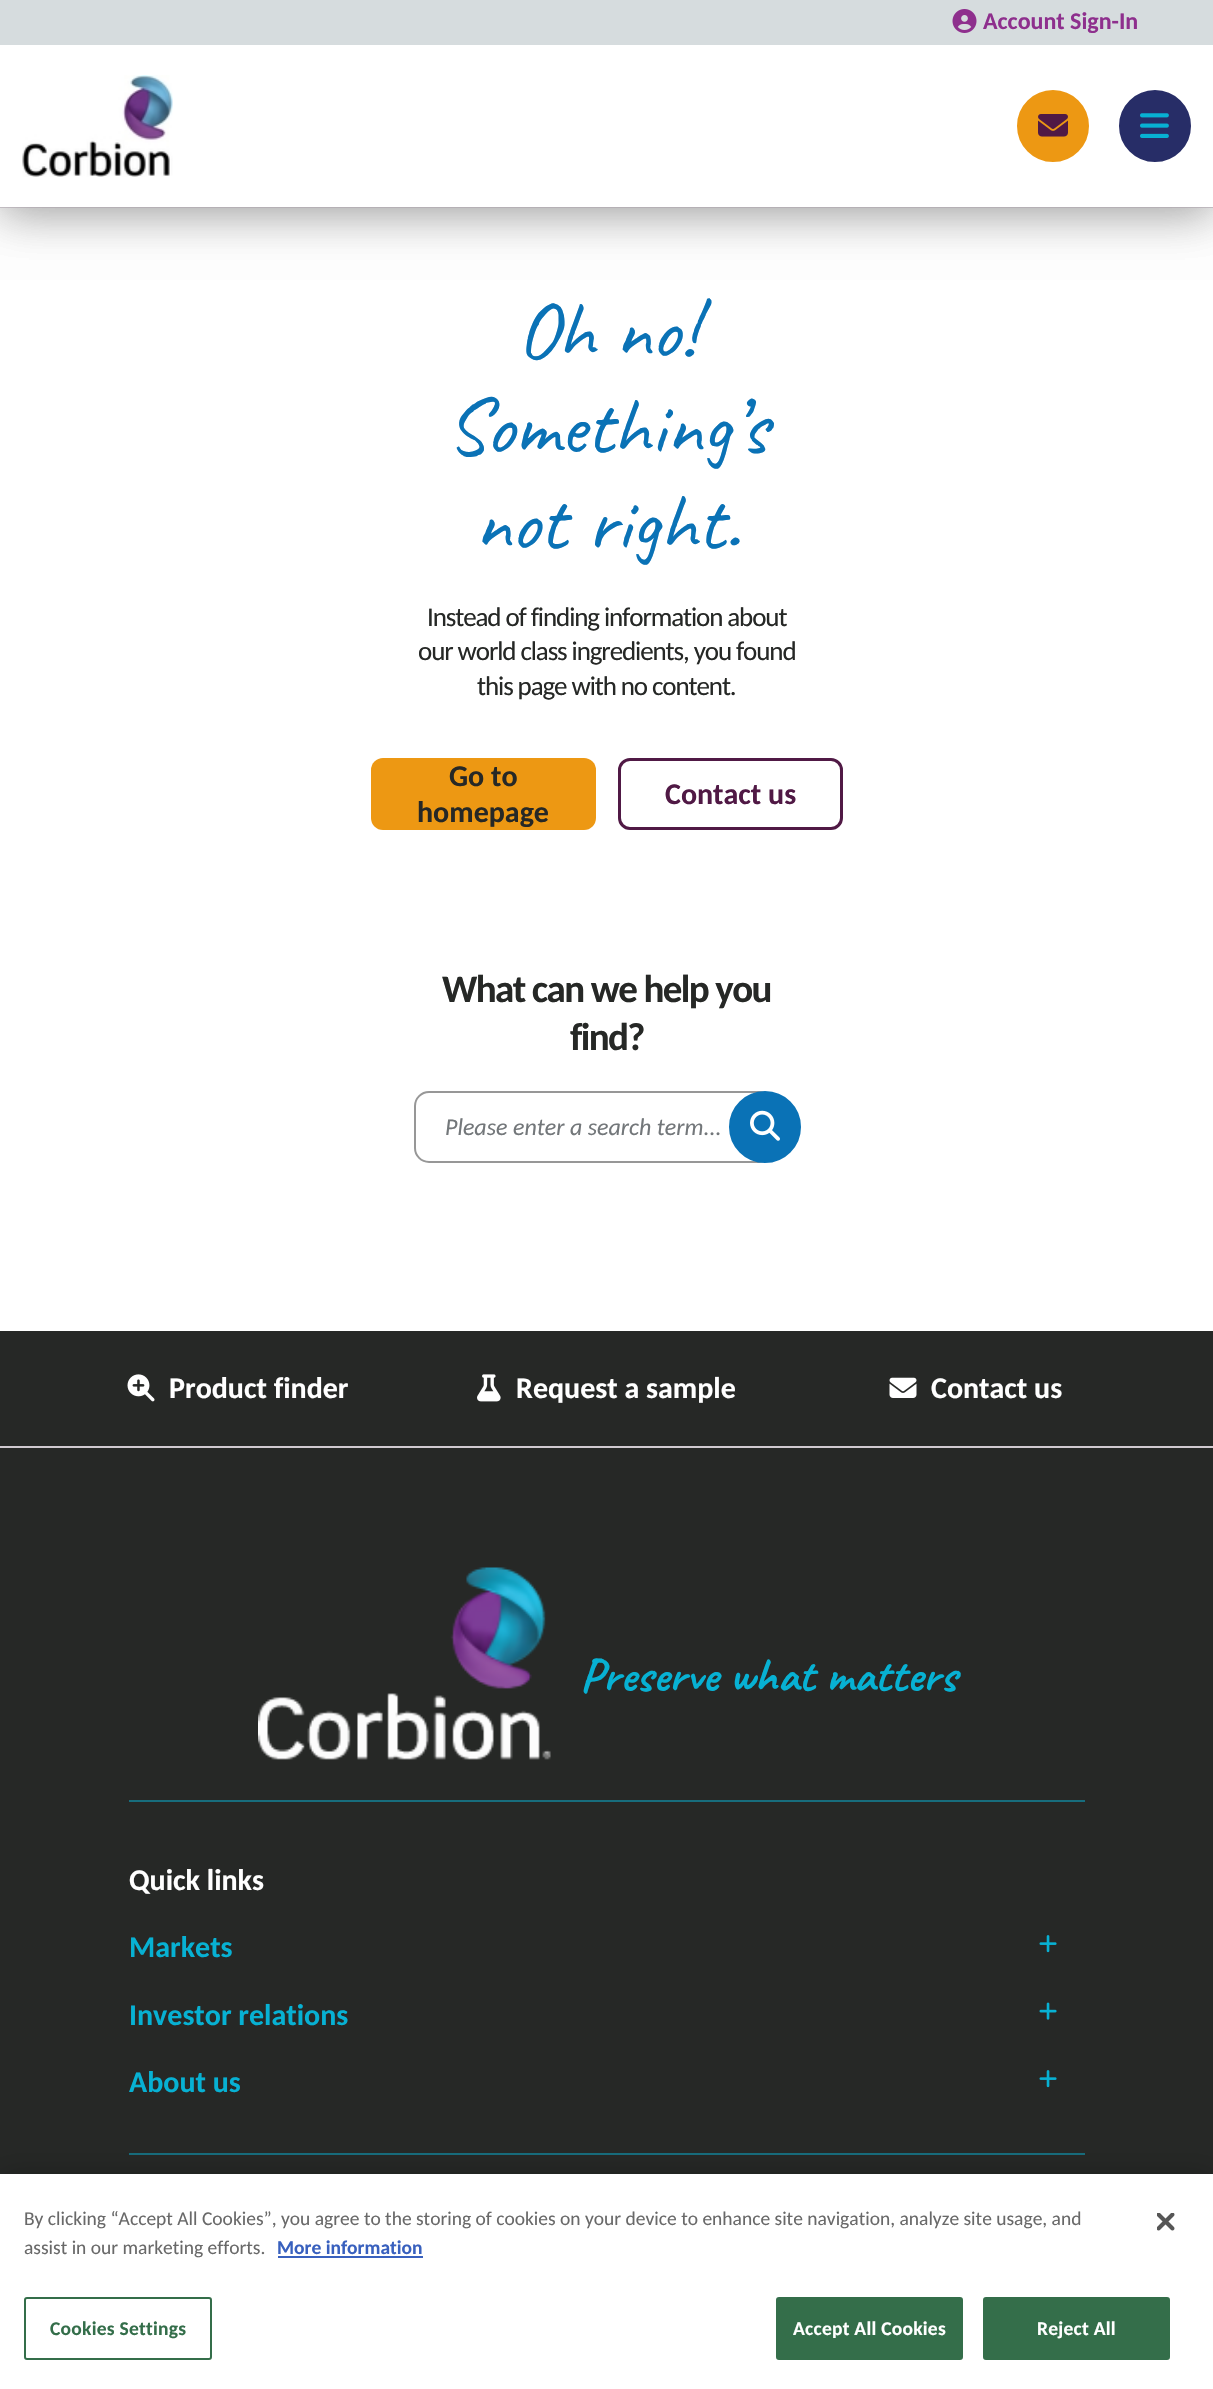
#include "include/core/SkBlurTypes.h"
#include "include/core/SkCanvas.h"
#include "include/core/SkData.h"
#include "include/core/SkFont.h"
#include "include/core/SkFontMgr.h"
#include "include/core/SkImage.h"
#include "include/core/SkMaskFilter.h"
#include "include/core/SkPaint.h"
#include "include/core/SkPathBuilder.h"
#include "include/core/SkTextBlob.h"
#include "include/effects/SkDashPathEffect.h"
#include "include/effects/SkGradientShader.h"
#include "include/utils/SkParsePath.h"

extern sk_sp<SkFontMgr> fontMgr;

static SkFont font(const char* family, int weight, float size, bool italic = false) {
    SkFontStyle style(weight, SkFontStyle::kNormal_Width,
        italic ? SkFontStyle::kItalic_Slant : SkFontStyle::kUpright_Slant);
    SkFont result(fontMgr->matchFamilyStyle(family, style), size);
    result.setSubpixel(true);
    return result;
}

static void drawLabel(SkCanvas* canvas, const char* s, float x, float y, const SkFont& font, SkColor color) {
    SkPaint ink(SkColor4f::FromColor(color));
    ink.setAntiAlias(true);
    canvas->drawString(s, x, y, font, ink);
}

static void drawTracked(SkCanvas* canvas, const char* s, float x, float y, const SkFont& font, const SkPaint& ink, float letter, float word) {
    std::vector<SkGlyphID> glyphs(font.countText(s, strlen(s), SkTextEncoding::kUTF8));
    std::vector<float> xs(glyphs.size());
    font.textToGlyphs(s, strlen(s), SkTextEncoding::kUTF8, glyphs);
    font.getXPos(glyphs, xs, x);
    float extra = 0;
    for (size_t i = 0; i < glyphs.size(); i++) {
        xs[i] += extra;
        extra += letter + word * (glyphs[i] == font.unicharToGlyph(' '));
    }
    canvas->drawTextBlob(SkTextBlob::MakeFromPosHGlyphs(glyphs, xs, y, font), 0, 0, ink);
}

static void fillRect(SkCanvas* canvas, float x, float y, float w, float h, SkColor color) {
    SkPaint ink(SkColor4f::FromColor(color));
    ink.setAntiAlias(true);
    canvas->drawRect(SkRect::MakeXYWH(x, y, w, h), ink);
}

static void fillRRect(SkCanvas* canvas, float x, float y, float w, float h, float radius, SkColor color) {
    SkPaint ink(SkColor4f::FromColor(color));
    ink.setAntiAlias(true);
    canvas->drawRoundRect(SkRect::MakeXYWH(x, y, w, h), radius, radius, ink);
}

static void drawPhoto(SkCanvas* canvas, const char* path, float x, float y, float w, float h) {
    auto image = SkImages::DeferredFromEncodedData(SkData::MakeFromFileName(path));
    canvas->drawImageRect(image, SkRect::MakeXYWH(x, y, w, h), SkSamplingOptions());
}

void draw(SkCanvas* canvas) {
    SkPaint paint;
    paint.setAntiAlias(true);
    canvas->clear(0xFFFFFFFF);
    paint.setColor(0x36000000);
    paint.setMaskFilter(SkMaskFilter::MakeBlur(kNormal_SkBlurStyle, 22.5f));
    canvas->drawRect(SkRect::MakeXYWH(0, 51, 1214, 162), paint);
    paint.setMaskFilter(nullptr);
    fillRect(canvas, 0, 207, 1213, 1, 0xFFCFC9CF);
    paint.setMaskFilter(SkMaskFilter::MakeBlur(kNormal_SkBlurStyle, 22.5f));
    canvas->drawRect(SkRect::MakeXYWH(0, 51, 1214, 162), paint);
    paint.setMaskFilter(nullptr);
    fillRect(canvas, 0, 45, 1213, 162, 0xFFFFFFFF);
    drawPhoto(canvas, "assets/img1.png", 22, 75, 151, 102);
    paint.setColor(0xFFED9813);
    canvas->drawCircle(1053, 126, 35, paint);
    paint.setStroke(true);
    paint.setStrokeWidth(2);
    canvas->drawCircle(1053, 126, 35, paint);
    drawPhoto(canvas, "assets/img2.png", 1038, 114, 30, 23);
    paint.setStroke(false);
    paint.setColor(0xFF272D67);
    canvas->drawCircle(1155, 126, 35, paint);
    paint.setStroke(true);
    canvas->drawCircle(1155, 126, 35, paint);
    drawPhoto(canvas, "assets/img3.png", 1140, 113, 29, 25);
    fillRect(canvas, 0, 0, 1213, 45, 0xFFD6DCDE);
    drawPhoto(canvas, "assets/img4.png", 952, 9, 25, 24);
    SkFont font1 = font("Carlito", 700, 24);
    drawLabel(canvas, "Account Sign-In", 983, 29, font1, 0xFF8E2F8D);
    SkFont font2 = font("Caveat", 400, 81);
    drawLabel(canvas, "Oh no!", 517, 357, font2, 0xFF0A72B6);
    drawLabel(canvas, "Something’s", 446, 453, font2, 0xFF0A72B6);
    paint.setStroke(false);
    paint.setColor(0xFF0A72B6);
    drawTracked(canvas, "not right.", 474, 549, font2, paint, 0, 1);
    SkFont font3 = font("Carlito", 400, 27);
    paint.setColor(0xFF262826);
    drawTracked(canvas, "Instead of finding information about", 427, 626, font3, paint, -1.1f, 0);
    drawTracked(canvas, "our world class ingredients, you found", 418, 660, font3, paint, -1.1f, 0);
    drawTracked(canvas, "this page with no content.", 477, 695, font3, paint, -1.1f, 0);
    fillRRect(canvas, 371, 758, 225, 72, 12, 0xFFED9813);
    SkFont font4 = font("Carlito", 700, 30);
    drawLabel(canvas, "Go to", 449, 786, font4, 0xFF262826);
    drawLabel(canvas, "homepage", 417, 822, font4, 0xFF262826);
    paint.setStroke(true);
    paint.setStrokeWidth(3);
    paint.setColor(0xFF501945);
    canvas->drawRoundRect(SkRect::MakeXYWH(619.5f, 759.5f, 222, 69), 10.5f, 10.5f, paint);
    drawLabel(canvas, "Contact us", 665, 804, font4, 0xFF501945);
    SkFont font5 = font("Carlito", 700, 39);
    paint.setStroke(false);
    paint.setColor(0xFF262826);
    drawTracked(canvas, "What can we help you", 442, 1002, font5, paint, -1.6f, 0);
    drawTracked(canvas, "find?", 570, 1050, font5, paint, -1.6f, 0);
    paint.setStroke(true);
    paint.setStrokeWidth(2);
    paint.setColor(0xFF979797);
    canvas->drawRoundRect(SkRect::MakeXYWH(415, 1092, 358, 70), 14, 14, paint);
    SkFont font6 = font("Carlito", 400, 24, true);
    drawLabel(canvas, "Please enter a search term...", 445, 1135, font6, 0xFF73777A);
    paint.setStroke(false);
    paint.setColor(0xFF0A72B6);
    canvas->drawCircle(765, 1127, 35, paint);
    paint.setStroke(true);
    canvas->drawCircle(765, 1127, 35, paint);
    drawPhoto(canvas, "assets/img5.png", 750, 1110, 30, 31);
    fillRect(canvas, 0, 1331, 1213, 843, 0xFF262826);
    fillRect(canvas, 0, 1446, 1213, 2, 0xFFCFC9CF);
    drawPhoto(canvas, "assets/img6.png", 127, 1374, 28, 28);
    drawLabel(canvas, "Product finder", 169, 1398, font4, 0xFFFFFFFF);
    drawPhoto(canvas, "assets/img7.png", 477, 1374, 24, 28);
    drawLabel(canvas, "Request a sample", 516, 1398, font4, 0xFFFFFFFF);
    drawPhoto(canvas, "assets/img8.png", 889, 1377, 28, 21);
    drawLabel(canvas, "Contact us", 931, 1398, font4, 0xFFFFFFFF);
    drawPhoto(canvas, "assets/img9.png", 258, 1567, 293, 193);
    SkFont font7 = font("Caveat", 700, 48);
    drawLabel(canvas, "Preserve what matters", 580, 1691, font7, 0xFF07B1D3);
    fillRect(canvas, 129, 1800, 956, 2, 0xFF176D7D);
    drawLabel(canvas, "Quick links", 129, 1890, font4, 0xFFFFFFFF);
    drawLabel(canvas, "Markets", 129, 1957, font4, 0xFF07B1D3);
    drawPhoto(canvas, "assets/img10.png", 1039, 1935, 18, 18);
    drawLabel(canvas, "Investor relations", 129, 2025, font4, 0xFF07B1D3);
    drawPhoto(canvas, "assets/img11.png", 1039, 2002, 18, 18);
    drawLabel(canvas, "About us", 129, 2092, font4, 0xFF07B1D3);
    drawPhoto(canvas, "assets/img10.png", 1039, 2070, 18, 18);
    fillRect(canvas, 129, 2153, 956, 2, 0xFF176D7D);
    paint.setStroke(false);
    paint.setColor(0x33000000);
    paint.setMaskFilter(SkMaskFilter::MakeBlur(kNormal_SkBlurStyle, 13.5f));
    canvas->drawRect(SkRect::MakeXYWH(0, 2174, 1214, 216), paint);
    paint.setMaskFilter(nullptr);
    fillRect(canvas, 0, 2174, 1213, 215, 0xFFFFFFFF);
    SkFont font8 = font("Carlito", 400, 19.5f);
    drawLabel(canvas, "By clicking “Accept All Cookies”, you agree to the storing of cookies on your device to enhance site navigation, analyze site usage, and", 24, 2225, font8, 0xFF696969);
    drawLabel(canvas, "assist in our marketing efforts.", 24, 2254, font8, 0xFF696969);
    SkFont font9 = font("Carlito", 700, 19.5f);
    drawLabel(canvas, "More information", 277, 2254, font9, 0xFF3860BE);
    fillRect(canvas, 278, 2256, 145, 2, 0xFF3860BE);
    paint.setStroke(true);
    paint.setColor(0xFF346E4A);
    canvas->drawRoundRect(SkRect::MakeXYWH(25, 2298, 186, 61), 2, 2, paint);
    paint.setStroke(false);
    drawTracked(canvas, "Cookies Settings", 50, 2335, font9, paint, 0.25f, 0);
    canvas->drawRoundRect(SkRect::MakeXYWH(777, 2298, 185, 61), 2, 2, paint);
    paint.setStroke(true);
    canvas->drawRoundRect(SkRect::MakeXYWH(777, 2298, 185, 61), 2, 2, paint);
    paint.setStroke(false);
    paint.setColor(0xFFFFFFFF);
    drawTracked(canvas, "Accept All Cookies", 793, 2335, font9, paint, 0.25f, 0);
    paint.setColor(0xFF346E4A);
    canvas->drawRoundRect(SkRect::MakeXYWH(984, 2298, 185, 61), 2, 2, paint);
    paint.setStroke(true);
    canvas->drawRoundRect(SkRect::MakeXYWH(984, 2298, 185, 61), 2, 2, paint);
    paint.setStroke(false);
    paint.setColor(0xFFFFFFFF);
    drawTracked(canvas, "Reject All", 1037, 2335, font9, paint, 0.25f, 0);
    drawPhoto(canvas, "assets/img12.png", 1157, 2213, 18, 18);
}
